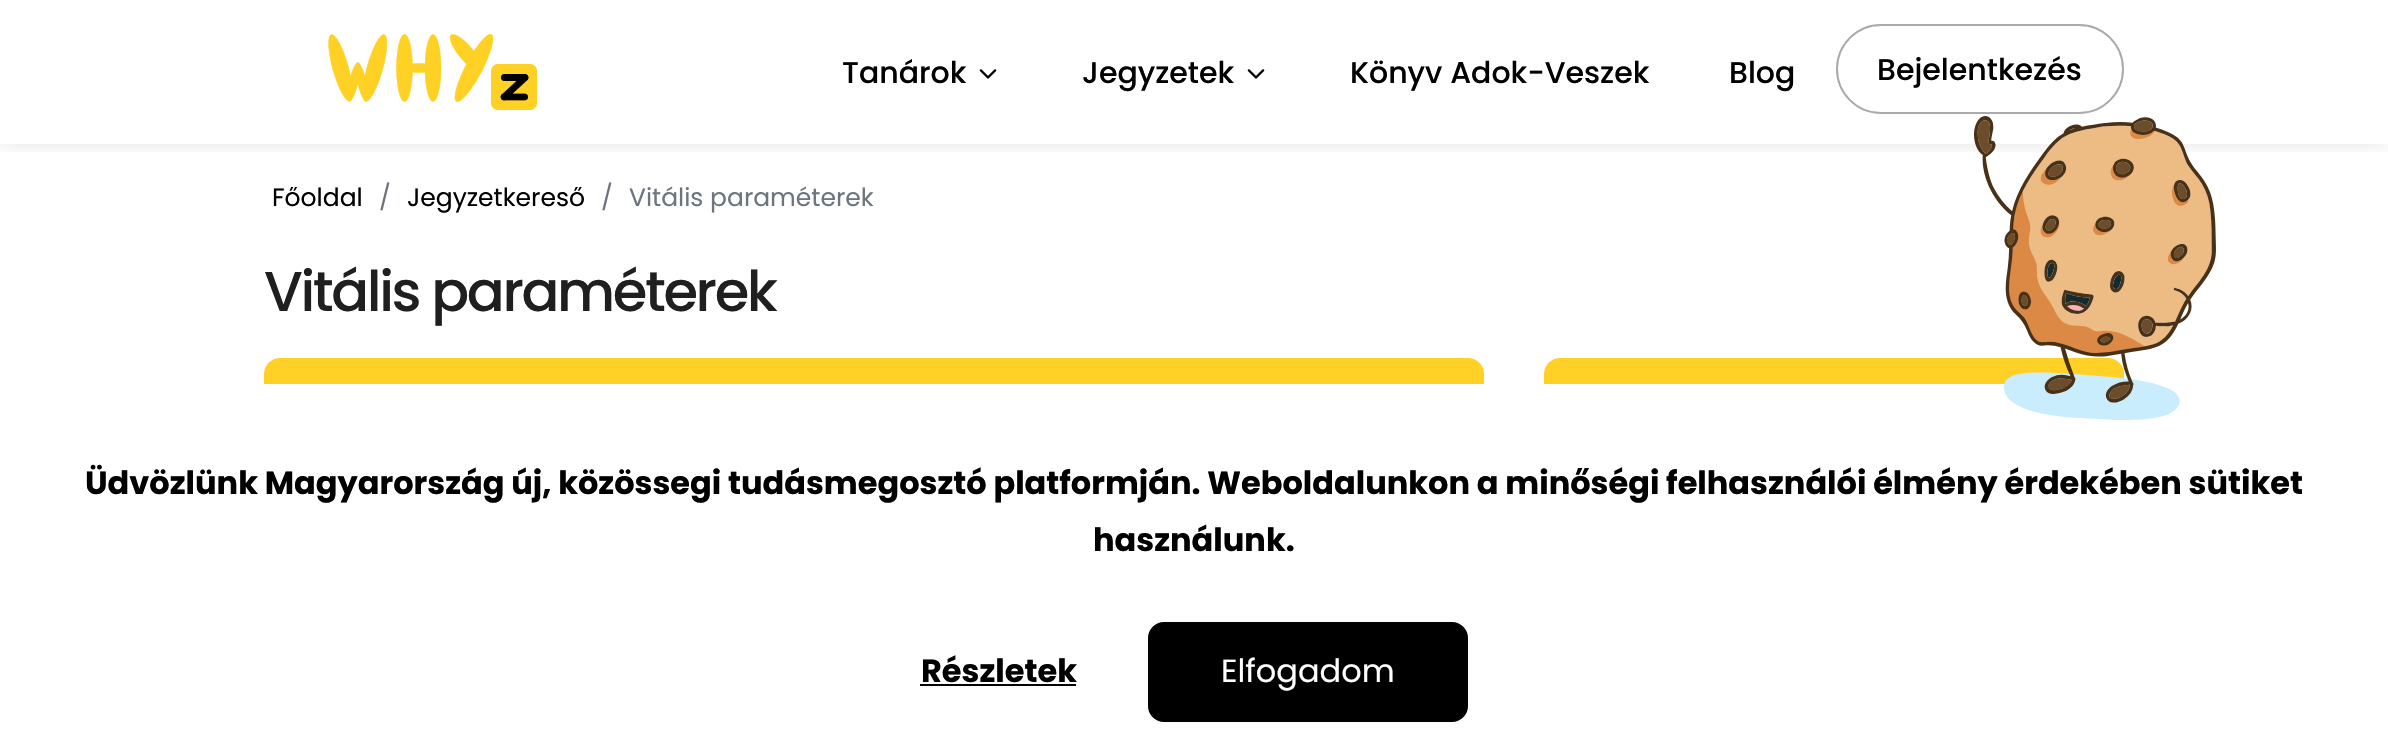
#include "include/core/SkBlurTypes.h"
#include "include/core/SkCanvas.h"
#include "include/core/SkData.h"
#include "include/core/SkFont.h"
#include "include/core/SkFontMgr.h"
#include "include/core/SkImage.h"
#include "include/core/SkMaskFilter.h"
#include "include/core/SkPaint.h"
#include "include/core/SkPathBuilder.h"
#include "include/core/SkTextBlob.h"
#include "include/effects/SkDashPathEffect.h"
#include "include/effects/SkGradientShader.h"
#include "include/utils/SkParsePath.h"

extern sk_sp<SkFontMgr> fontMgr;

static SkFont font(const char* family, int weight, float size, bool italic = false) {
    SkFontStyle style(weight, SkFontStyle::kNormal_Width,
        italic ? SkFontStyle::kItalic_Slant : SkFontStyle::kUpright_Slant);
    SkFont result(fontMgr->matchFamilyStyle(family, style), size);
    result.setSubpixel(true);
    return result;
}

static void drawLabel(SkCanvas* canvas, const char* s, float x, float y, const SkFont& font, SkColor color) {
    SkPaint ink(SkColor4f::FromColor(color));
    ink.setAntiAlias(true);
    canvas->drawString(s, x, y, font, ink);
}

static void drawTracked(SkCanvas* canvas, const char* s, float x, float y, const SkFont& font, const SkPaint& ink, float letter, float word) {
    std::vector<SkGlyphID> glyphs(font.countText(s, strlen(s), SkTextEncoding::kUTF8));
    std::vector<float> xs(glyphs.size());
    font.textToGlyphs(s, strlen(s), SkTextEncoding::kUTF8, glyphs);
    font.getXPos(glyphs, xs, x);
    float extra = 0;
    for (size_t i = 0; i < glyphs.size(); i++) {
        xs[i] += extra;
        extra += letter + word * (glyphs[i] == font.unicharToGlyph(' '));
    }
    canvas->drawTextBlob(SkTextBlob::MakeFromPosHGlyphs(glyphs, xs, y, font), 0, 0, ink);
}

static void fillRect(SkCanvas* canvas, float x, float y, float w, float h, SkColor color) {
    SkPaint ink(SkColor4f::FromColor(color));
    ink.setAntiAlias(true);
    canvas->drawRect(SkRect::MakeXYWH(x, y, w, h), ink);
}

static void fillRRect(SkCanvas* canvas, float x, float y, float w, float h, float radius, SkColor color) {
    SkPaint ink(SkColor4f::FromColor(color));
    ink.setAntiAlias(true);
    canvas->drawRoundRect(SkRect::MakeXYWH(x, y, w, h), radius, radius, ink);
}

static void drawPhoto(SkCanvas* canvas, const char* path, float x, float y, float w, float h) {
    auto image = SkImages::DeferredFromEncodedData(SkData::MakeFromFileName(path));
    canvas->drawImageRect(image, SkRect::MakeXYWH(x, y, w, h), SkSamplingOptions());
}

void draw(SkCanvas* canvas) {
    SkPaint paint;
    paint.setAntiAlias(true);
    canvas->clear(0xFFFFFFFF);
    canvas->save();
    canvas->clipRect(SkRect::MakeXYWH(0, 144, 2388, 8));
    paint.setColor(0x1A000000);
    paint.setMaskFilter(SkMaskFilter::MakeBlur(kNormal_SkBlurStyle, 10));
    canvas->drawRect(SkRect::MakeXYWH(0, 0, 2388, 144), paint);
    paint.setMaskFilter(nullptr);
    canvas->restore();
    drawPhoto(canvas, "assets/img1.png", 328, 34, 209, 76);
    SkFont font1 = font("Poppins", 500, 30);
    drawLabel(canvas, "Tanárok", 842, 83, font1, 0xFF000000);
    drawPhoto(canvas, "assets/img2.png", 979, 69, 18, 10);
    drawLabel(canvas, "Jegyzetek", 1082, 83, font1, 0xFF000000);
    drawPhoto(canvas, "assets/img2.png", 1247, 69, 18, 10);
    drawLabel(canvas, "Könyv Adok-Veszek", 1350, 83, font1, 0xFF000000);
    drawLabel(canvas, "Blog", 1729, 83, font1, 0xFF000000);
    paint.setStroke(true);
    paint.setStrokeWidth(2);
    paint.setColor(0xFFAAAAAA);
    canvas->drawRoundRect(SkRect::MakeXYWH(1837, 25, 286, 88), 44, 44, paint);
    drawLabel(canvas, "Bejelentkezés", 1877, 80, font1, 0xFF000000);
    SkFont font2 = font("Poppins", 400, 25);
    drawLabel(canvas, "Főoldal", 272, 206, font2, 0xFF000000);
    drawLabel(canvas, "/", 379, 206, font2, 0xFF6C757D);
    drawLabel(canvas, "Jegyzetkereső", 407, 206, font2, 0xFF000000);
    drawLabel(canvas, "/", 601, 206, font2, 0xFF6C757D);
    drawLabel(canvas, "Vitális paraméterek", 629, 206, font2, 0xFF6C757D);
    SkFont font3 = font("Poppins", 500, 56);
    paint.setStroke(false);
    paint.setColor(0xFF1F1F1F);
    drawTracked(canvas, "Vitális paraméterek", 264, 311, font3, paint, -2.4f, 0);
    fillRRect(canvas, 264, 358, 1220, 128, 16, 0xFFFFD026);
    fillRRect(canvas, 1544, 358, 580, 128, 16, 0xFFFFD026);
    fillRect(canvas, 264, 384, 1860, 102, 0xFFFFFFFF);
    drawPhoto(canvas, "assets/img3.png", 1974, 116, 242, 304);
    SkFont font4 = font("Poppins", 700, 32);
    drawLabel(canvas, "Üdvözlünk Magyarország új, közössegi tudásmegosztó platformján. Weboldalunkon a minőségi felhasználói élmény érdekében sütiket", 85, 494, font4, 0xFF000000);
    drawLabel(canvas, "használunk.", 1093, 551, font4, 0xFF000000);
    drawLabel(canvas, "Részletek", 921, 682, font4, 0xFF000000);
    fillRect(canvas, 920, 684, 156, 2, 0xFF000000);
    paint.setColor(0xFF000000);
    canvas->drawRoundRect(SkRect::MakeXYWH(1149, 623, 318, 98), 15, 15, paint);
    paint.setStroke(true);
    canvas->drawRoundRect(SkRect::MakeXYWH(1149, 623, 318, 98), 15, 15, paint);
    SkFont font5 = font("Poppins", 400, 32);
    drawLabel(canvas, "Elfogadom", 1221, 682, font5, 0xFFFFFFFF);
}
